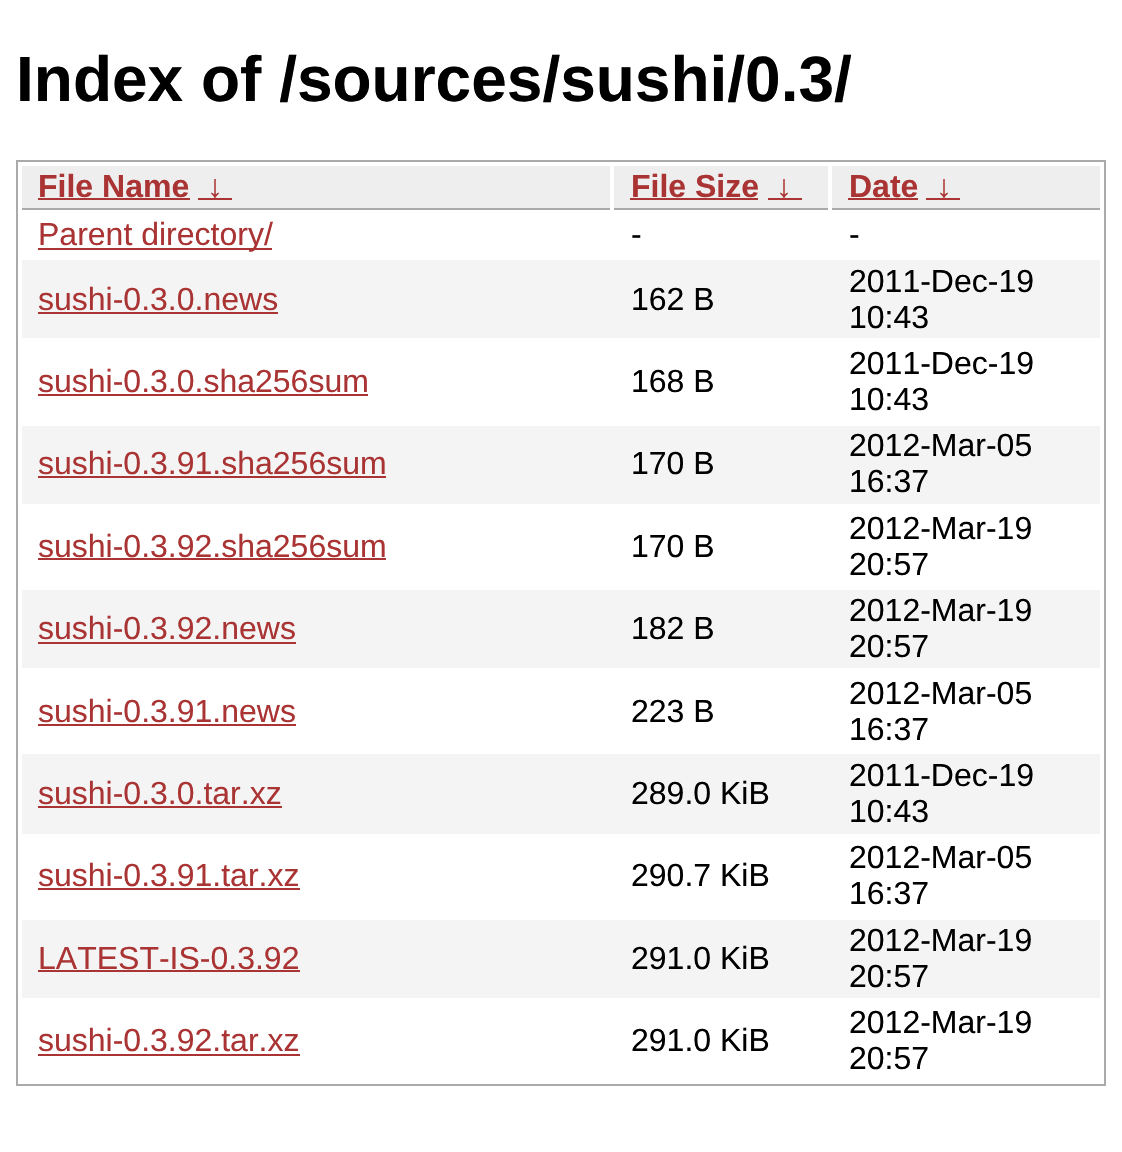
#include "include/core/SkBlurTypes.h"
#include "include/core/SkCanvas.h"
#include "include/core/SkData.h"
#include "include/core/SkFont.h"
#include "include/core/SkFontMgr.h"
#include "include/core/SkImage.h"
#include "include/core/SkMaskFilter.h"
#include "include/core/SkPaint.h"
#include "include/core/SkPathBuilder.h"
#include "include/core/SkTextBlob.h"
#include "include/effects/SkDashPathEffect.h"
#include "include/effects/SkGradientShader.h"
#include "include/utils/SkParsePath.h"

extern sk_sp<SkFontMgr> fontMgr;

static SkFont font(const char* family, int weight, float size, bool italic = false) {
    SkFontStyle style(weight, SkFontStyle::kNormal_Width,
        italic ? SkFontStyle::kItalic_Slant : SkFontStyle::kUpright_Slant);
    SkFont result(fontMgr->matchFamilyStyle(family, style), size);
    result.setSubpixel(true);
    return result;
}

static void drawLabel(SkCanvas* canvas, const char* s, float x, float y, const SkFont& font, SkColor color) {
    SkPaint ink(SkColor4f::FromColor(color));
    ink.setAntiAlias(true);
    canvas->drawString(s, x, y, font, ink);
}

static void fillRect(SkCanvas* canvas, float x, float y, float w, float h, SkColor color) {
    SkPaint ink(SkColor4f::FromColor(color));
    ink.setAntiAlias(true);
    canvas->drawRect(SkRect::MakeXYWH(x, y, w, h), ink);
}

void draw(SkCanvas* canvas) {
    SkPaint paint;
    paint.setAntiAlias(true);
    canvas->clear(0xFFFFFFFF);
    SkFont font1 = font("Liberation Sans", 700, 64);
    drawLabel(canvas, "Index of /sources/sushi/0.3/", 16, 101, font1, 0xFF000000);
    paint.setStroke(true);
    paint.setStrokeWidth(2);
    paint.setColor(0xFFAAAAAA);
    canvas->drawRect(SkRect::MakeXYWH(17, 161, 1088, 924), paint);
    fillRect(canvas, 22, 166, 588, 42, 0xFFEEEEEE);
    fillRect(canvas, 22, 208, 588, 2, 0xFFAAAAAA);
    SkFont font2 = font("Liberation Sans", 700, 32);
    drawLabel(canvas, "File Name", 38, 197, font2, 0xFFAA3333);
    fillRect(canvas, 38, 198, 152, 2, 0xFFAA3333);
    drawLabel(canvas, "↓", 207, 197, font2, 0xFFAA3333);
    fillRect(canvas, 198, 198, 34, 2, 0xFFAA3333);
    fillRect(canvas, 614, 166, 214, 42, 0xFFEEEEEE);
    fillRect(canvas, 614, 208, 214, 2, 0xFFAAAAAA);
    drawLabel(canvas, "File Size", 631, 197, font2, 0xFFAA3333);
    fillRect(canvas, 630, 198, 128, 2, 0xFFAA3333);
    drawLabel(canvas, "↓", 776, 197, font2, 0xFFAA3333);
    fillRect(canvas, 768, 198, 34, 2, 0xFFAA3333);
    fillRect(canvas, 832, 166, 268, 42, 0xFFEEEEEE);
    fillRect(canvas, 832, 208, 268, 2, 0xFFAAAAAA);
    drawLabel(canvas, "Date", 849, 197, font2, 0xFFAA3333);
    fillRect(canvas, 848, 198, 70, 2, 0xFFAA3333);
    drawLabel(canvas, "↓", 936, 197, font2, 0xFFAA3333);
    fillRect(canvas, 926, 198, 34, 2, 0xFFAA3333);
    fillRect(canvas, 38, 248, 234, 2, 0xFFAA3333);
    SkFont font3 = font("Liberation Sans", 400, 32);
    drawLabel(canvas, "Parent directory/", 38, 245, font3, 0xFFAA3333);
    drawLabel(canvas, "-", 631, 245, font3, 0xFF000000);
    drawLabel(canvas, "-", 849, 245, font3, 0xFF000000);
    fillRect(canvas, 22, 260, 1078, 78, 0xFFF4F4F4);
    drawLabel(canvas, "sushi-0.3.0.news", 38, 310, font3, 0xFFAA3333);
    fillRect(canvas, 38, 312, 240, 2, 0xFFAA3333);
    drawLabel(canvas, "162 B", 631, 310, font3, 0xFF000000);
    drawLabel(canvas, "2011-Dec-19", 849, 292, font3, 0xFF000000);
    drawLabel(canvas, "10:43", 849, 328, font3, 0xFF000000);
    drawLabel(canvas, "sushi-0.3.0.sha256sum", 38, 392, font3, 0xFFAA3333);
    fillRect(canvas, 38, 394, 330, 2, 0xFFAA3333);
    drawLabel(canvas, "168 B", 631, 392, font3, 0xFF000000);
    drawLabel(canvas, "2011-Dec-19", 849, 374, font3, 0xFF000000);
    drawLabel(canvas, "10:43", 849, 410, font3, 0xFF000000);
    fillRect(canvas, 22, 426, 1078, 78, 0xFFF4F4F4);
    drawLabel(canvas, "sushi-0.3.91.sha256sum", 38, 474, font3, 0xFFAA3333);
    fillRect(canvas, 38, 476, 348, 2, 0xFFAA3333);
    drawLabel(canvas, "170 B", 631, 474, font3, 0xFF000000);
    drawLabel(canvas, "2012-Mar-05", 849, 456, font3, 0xFF000000);
    drawLabel(canvas, "16:37", 849, 492, font3, 0xFF000000);
    drawLabel(canvas, "sushi-0.3.92.sha256sum", 38, 557, font3, 0xFFAA3333);
    fillRect(canvas, 38, 558, 348, 2, 0xFFAA3333);
    drawLabel(canvas, "170 B", 631, 557, font3, 0xFF000000);
    drawLabel(canvas, "2012-Mar-19", 849, 539, font3, 0xFF000000);
    drawLabel(canvas, "20:57", 849, 575, font3, 0xFF000000);
    fillRect(canvas, 22, 590, 1078, 78, 0xFFF4F4F4);
    drawLabel(canvas, "sushi-0.3.92.news", 38, 639, font3, 0xFFAA3333);
    fillRect(canvas, 38, 642, 258, 2, 0xFFAA3333);
    drawLabel(canvas, "182 B", 631, 639, font3, 0xFF000000);
    drawLabel(canvas, "2012-Mar-19", 849, 621, font3, 0xFF000000);
    drawLabel(canvas, "20:57", 849, 657, font3, 0xFF000000);
    drawLabel(canvas, "sushi-0.3.91.news", 38, 722, font3, 0xFFAA3333);
    fillRect(canvas, 38, 724, 258, 2, 0xFFAA3333);
    drawLabel(canvas, "223 B", 631, 722, font3, 0xFF000000);
    drawLabel(canvas, "2012-Mar-05", 849, 704, font3, 0xFF000000);
    drawLabel(canvas, "16:37", 849, 740, font3, 0xFF000000);
    fillRect(canvas, 22, 754, 1078, 80, 0xFFF4F4F4);
    drawLabel(canvas, "sushi-0.3.0.tar.xz", 38, 804, font3, 0xFFAA3333);
    fillRect(canvas, 38, 806, 244, 2, 0xFFAA3333);
    drawLabel(canvas, "289.0 KiB", 631, 804, font3, 0xFF000000);
    drawLabel(canvas, "2011-Dec-19", 849, 786, font3, 0xFF000000);
    drawLabel(canvas, "10:43", 849, 822, font3, 0xFF000000);
    drawLabel(canvas, "sushi-0.3.91.tar.xz", 38, 886, font3, 0xFFAA3333);
    fillRect(canvas, 38, 888, 262, 2, 0xFFAA3333);
    drawLabel(canvas, "290.7 KiB", 631, 886, font3, 0xFF000000);
    drawLabel(canvas, "2012-Mar-05", 849, 868, font3, 0xFF000000);
    drawLabel(canvas, "16:37", 849, 904, font3, 0xFF000000);
    fillRect(canvas, 22, 920, 1078, 78, 0xFFF4F4F4);
    drawLabel(canvas, "LATEST-IS-0.3.92", 38, 969, font3, 0xFFAA3333);
    fillRect(canvas, 38, 970, 262, 2, 0xFFAA3333);
    drawLabel(canvas, "291.0 KiB", 631, 969, font3, 0xFF000000);
    drawLabel(canvas, "2012-Mar-19", 849, 951, font3, 0xFF000000);
    drawLabel(canvas, "20:57", 849, 987, font3, 0xFF000000);
    drawLabel(canvas, "sushi-0.3.92.tar.xz", 38, 1051, font3, 0xFFAA3333);
    fillRect(canvas, 38, 1054, 262, 2, 0xFFAA3333);
    drawLabel(canvas, "291.0 KiB", 631, 1051, font3, 0xFF000000);
    drawLabel(canvas, "2012-Mar-19", 849, 1033, font3, 0xFF000000);
    drawLabel(canvas, "20:57", 849, 1069, font3, 0xFF000000);
}
